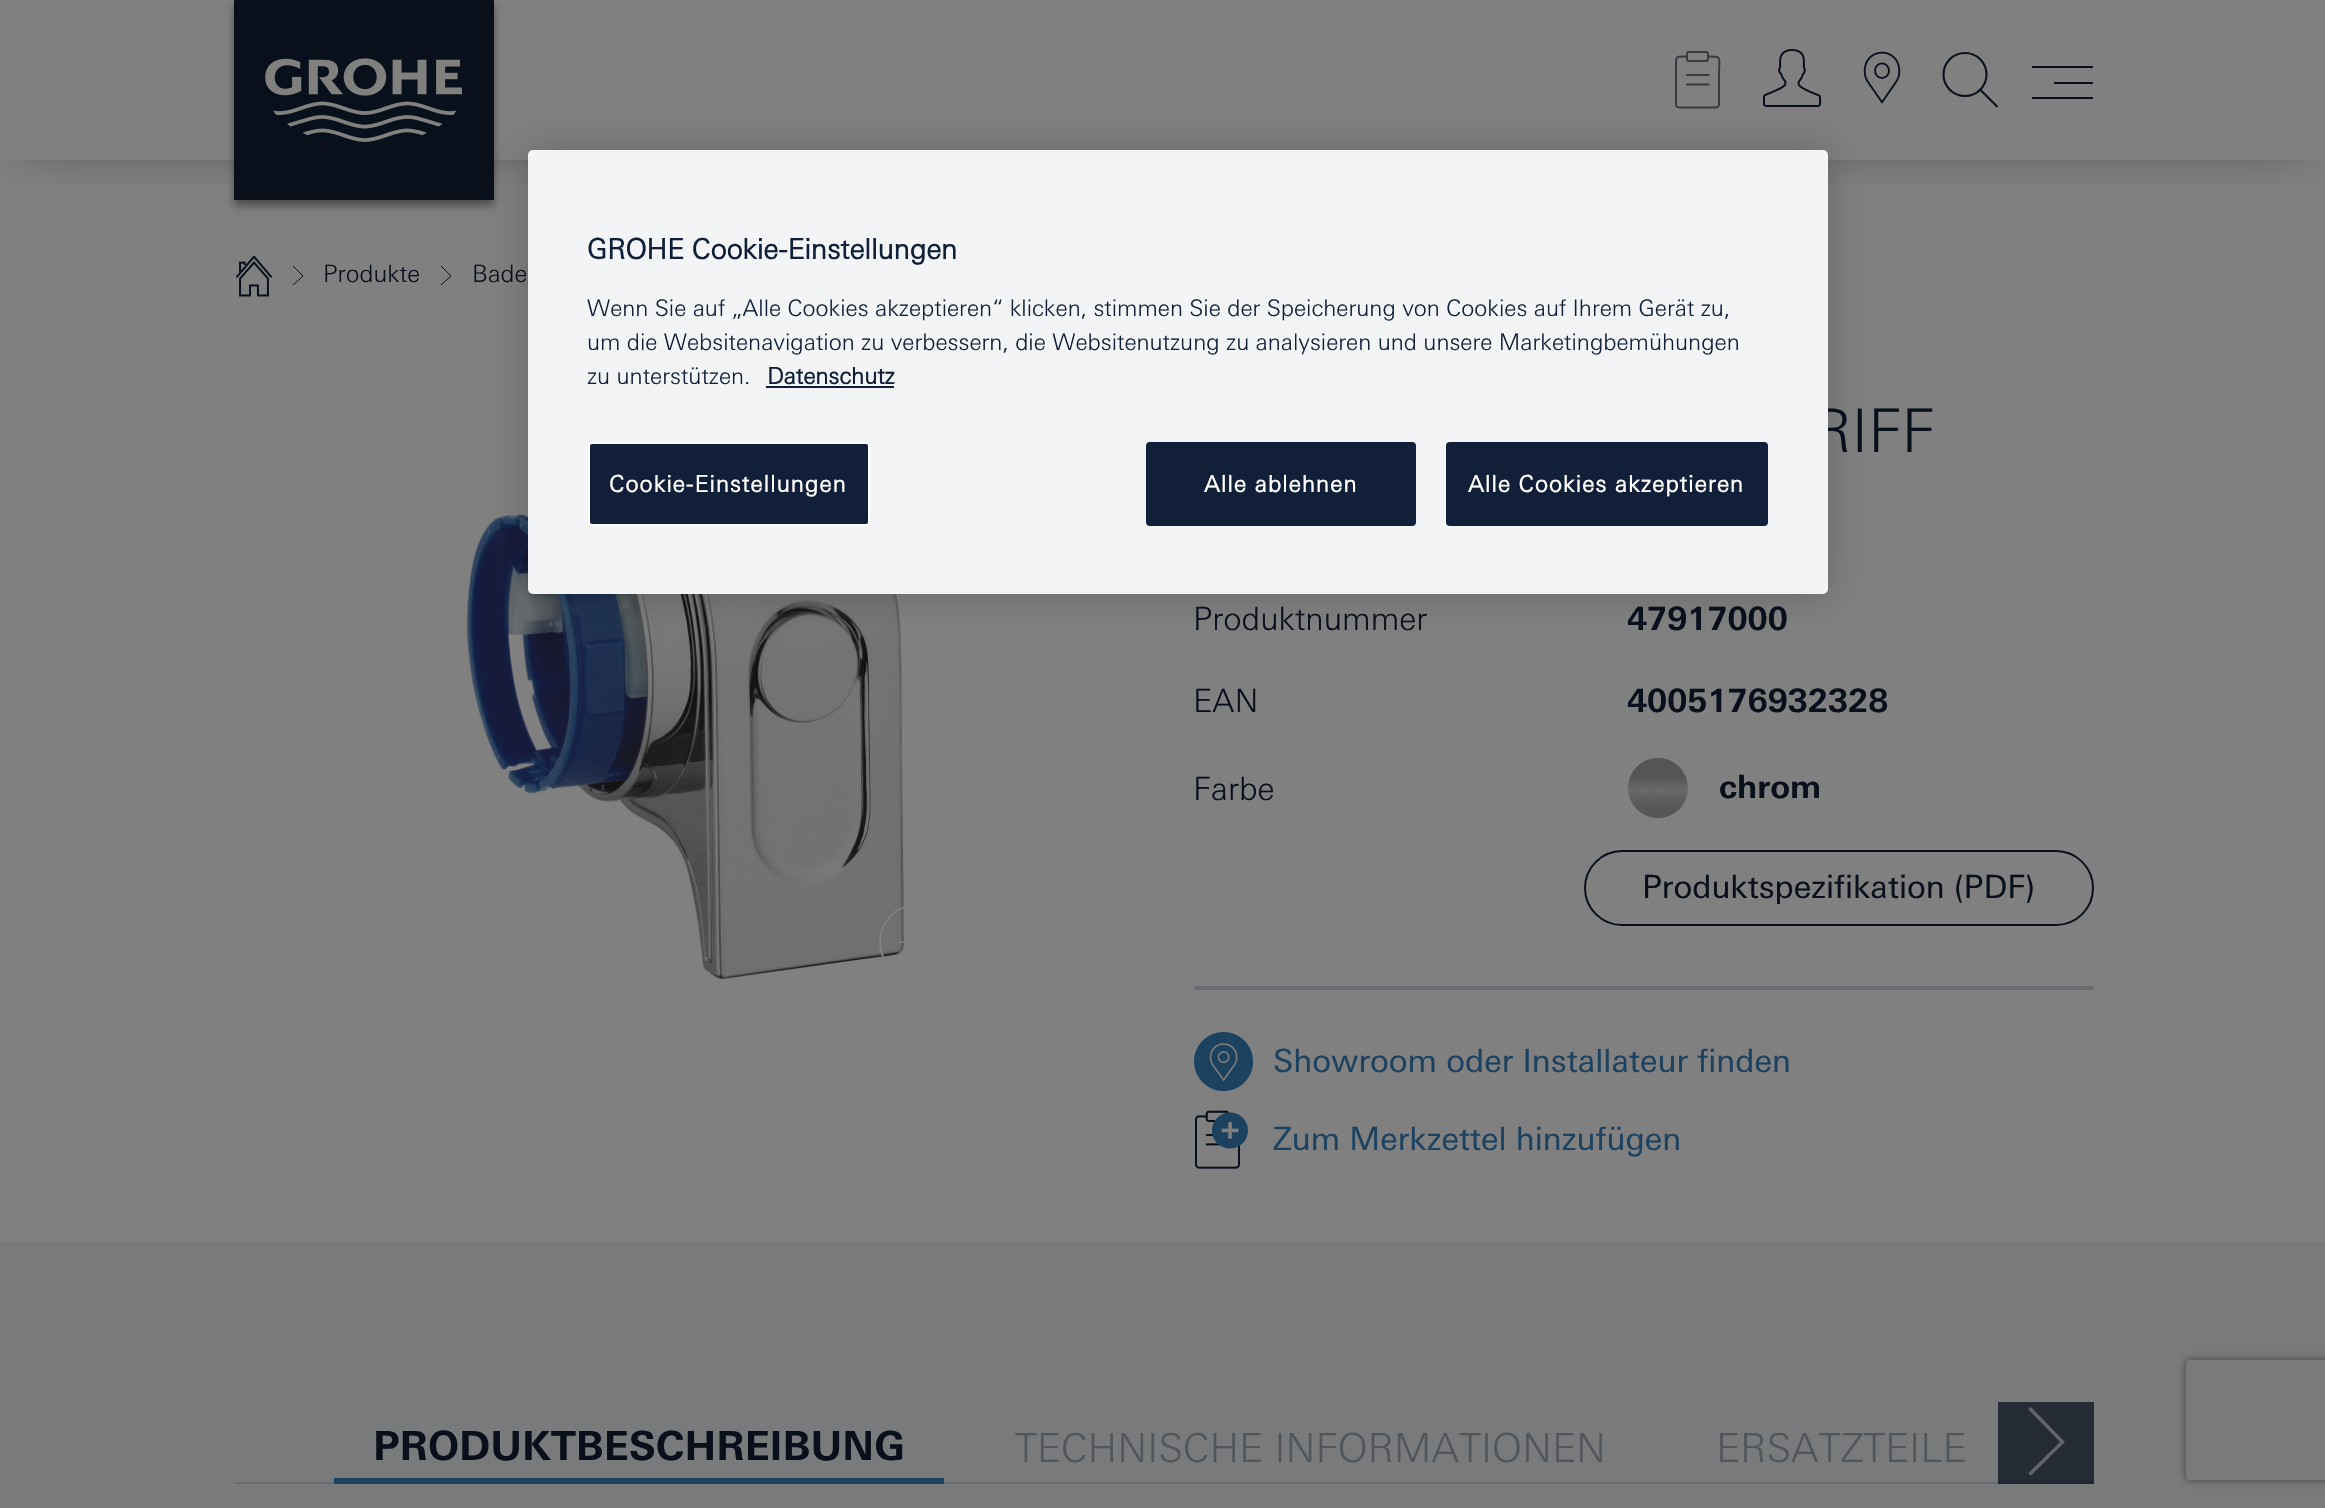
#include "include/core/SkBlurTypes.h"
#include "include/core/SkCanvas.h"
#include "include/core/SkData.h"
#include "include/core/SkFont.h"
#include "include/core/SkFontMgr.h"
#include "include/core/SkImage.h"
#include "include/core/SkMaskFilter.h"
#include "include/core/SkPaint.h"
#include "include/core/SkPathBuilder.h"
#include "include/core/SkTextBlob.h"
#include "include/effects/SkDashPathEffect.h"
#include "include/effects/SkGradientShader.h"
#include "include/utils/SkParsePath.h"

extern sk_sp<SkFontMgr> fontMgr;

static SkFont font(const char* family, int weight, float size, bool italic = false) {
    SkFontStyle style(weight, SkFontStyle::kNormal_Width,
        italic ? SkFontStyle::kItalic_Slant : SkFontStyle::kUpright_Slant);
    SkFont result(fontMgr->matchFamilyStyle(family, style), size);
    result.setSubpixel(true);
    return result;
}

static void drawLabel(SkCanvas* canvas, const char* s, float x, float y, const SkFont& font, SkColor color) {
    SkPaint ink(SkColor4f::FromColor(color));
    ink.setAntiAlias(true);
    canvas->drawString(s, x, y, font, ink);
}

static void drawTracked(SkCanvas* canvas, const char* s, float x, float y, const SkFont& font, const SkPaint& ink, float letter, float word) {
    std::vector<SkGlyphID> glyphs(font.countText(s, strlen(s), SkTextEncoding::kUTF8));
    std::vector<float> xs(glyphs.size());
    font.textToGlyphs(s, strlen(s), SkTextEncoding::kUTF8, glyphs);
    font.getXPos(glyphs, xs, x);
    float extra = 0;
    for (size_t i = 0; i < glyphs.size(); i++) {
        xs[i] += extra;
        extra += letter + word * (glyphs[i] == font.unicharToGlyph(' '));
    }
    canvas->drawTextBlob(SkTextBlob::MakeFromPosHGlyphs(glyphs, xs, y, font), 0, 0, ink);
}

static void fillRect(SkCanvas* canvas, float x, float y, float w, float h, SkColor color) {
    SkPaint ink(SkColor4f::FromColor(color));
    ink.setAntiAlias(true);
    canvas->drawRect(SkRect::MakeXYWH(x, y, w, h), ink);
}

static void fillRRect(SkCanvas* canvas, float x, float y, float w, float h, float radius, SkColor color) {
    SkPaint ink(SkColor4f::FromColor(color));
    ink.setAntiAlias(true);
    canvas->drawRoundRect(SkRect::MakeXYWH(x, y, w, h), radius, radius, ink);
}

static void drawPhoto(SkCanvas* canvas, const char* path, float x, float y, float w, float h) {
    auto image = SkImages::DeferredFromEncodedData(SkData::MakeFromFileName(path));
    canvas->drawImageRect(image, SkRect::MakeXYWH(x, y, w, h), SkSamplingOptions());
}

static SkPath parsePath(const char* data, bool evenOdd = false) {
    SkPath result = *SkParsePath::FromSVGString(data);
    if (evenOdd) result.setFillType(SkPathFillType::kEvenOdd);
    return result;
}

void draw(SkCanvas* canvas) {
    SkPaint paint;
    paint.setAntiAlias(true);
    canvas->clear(0xFF808080);
    canvas->save();
    canvas->clipRect(SkRect::MakeXYWH(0, 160, 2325, 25));
    paint.setColor(0x66000000);
    paint.setMaskFilter(SkMaskFilter::MakeBlur(kNormal_SkBlurStyle, 24));
    canvas->drawRect(SkRect::MakeXYWH(20, 26, 2286, 120), paint);
    paint.setMaskFilter(nullptr);
    canvas->restore();
    paint.setMaskFilter(SkMaskFilter::MakeBlur(kNormal_SkBlurStyle, 4));
    canvas->drawRect(SkRect::MakeXYWH(234, 6, 260, 200), paint);
    paint.setMaskFilter(nullptr);
    fillRect(canvas, 234, 0, 260, 200, 0xFF09101C);
    paint.setStroke(true);
    paint.setStrokeWidth(2);
    paint.setStrokeJoin(SkPaint::kRound_Join);
    paint.setColor(0xFF363B42);
    canvas->drawPath(parsePath("M1707.5 56.5C1723 56.5 1719 56.5 1719 74.5V104.5C1719 106 1717.5 107.5 1716 107.5H1685C1674.5 107.5 1676 108 1676 97V67C1676 55 1675.5 56.5 1687 56.5"), paint);
    drawPhoto(canvas, "assets/img2.png", 1763, 49, 58, 58);
    drawPhoto(canvas, "assets/img3.png", 1863, 51, 38, 53);
    drawPhoto(canvas, "assets/img5.png", 466, 441, 438, 539);
    paint.setStroke(false);
    paint.setColor(0x33000000);
    paint.setMaskFilter(SkMaskFilter::MakeBlur(kNormal_SkBlurStyle, 18));
    canvas->drawRoundRect(SkRect::MakeXYWH(528, 150, 1300, 444), 5, 5, paint);
    paint.setMaskFilter(nullptr);
    SkFont font1 = font("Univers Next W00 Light", 300, 60);
    drawLabel(canvas, "RIFF", 1812, 452, font1, 0xFF09101C);
    fillRRect(canvas, 528, 150, 1300, 444, 5, 0xFFF2F4F6);
    SkFont font2 = font("Univers Next W00 Light", 700, 28);
    drawLabel(canvas, "GROHE Cookie-Einstellungen", 587, 259, font2, 0xFF112038);
    SkFont font3 = font("Univers Next W00 Light", 300, 22.75f);
    drawLabel(canvas, "Wenn Sie auf „Alle Cookies akzeptieren“ klicken, stimmen Sie der Speicherung von Cookies auf Ihrem Gerät zu,", 587, 316, font3, 0xFF112038);
    drawLabel(canvas, "um die Websitenavigation zu verbessern, die Websitenutzung zu analysieren und unsere Marketingbemühungen", 587, 350, font3, 0xFF112038);
    drawLabel(canvas, "zu unterstützen.", 587, 384, font3, 0xFF112038);
    SkFont font4 = font("Univers Next W00 Light", 700, 22.75f);
    drawLabel(canvas, "Datenschutz", 767, 384, font4, 0xFF112038);
    fillRect(canvas, 766, 386, 128, 2, 0xFF112038);
    paint.setColor(0xFF112038);
    canvas->drawRoundRect(SkRect::MakeXYWH(589, 443, 280, 82), 3, 3, paint);
    paint.setStroke(true);
    paint.setStrokeJoin(SkPaint::kMiter_Join);
    paint.setColor(0xFFFFFFFF);
    canvas->drawRoundRect(SkRect::MakeXYWH(589, 443, 280, 82), 3, 3, paint);
    paint.setStroke(false);
    drawTracked(canvas, "Cookie-Einstellungen", 609, 492, font4, paint, 1.1f, 0);
    paint.setColor(0xFF112038);
    canvas->drawRoundRect(SkRect::MakeXYWH(1147, 443, 268, 82), 3, 3, paint);
    paint.setStroke(true);
    canvas->drawRoundRect(SkRect::MakeXYWH(1147, 443, 268, 82), 3, 3, paint);
    paint.setStroke(false);
    paint.setColor(0xFFFFFFFF);
    drawTracked(canvas, "Alle ablehnen", 1204, 492, font4, paint, 1.1f, 0);
    paint.setColor(0xFF112038);
    canvas->drawRoundRect(SkRect::MakeXYWH(1447, 443, 320, 82), 3, 3, paint);
    paint.setStroke(true);
    canvas->drawRoundRect(SkRect::MakeXYWH(1447, 443, 320, 82), 3, 3, paint);
    paint.setStroke(false);
    paint.setColor(0xFFFFFFFF);
    drawTracked(canvas, "Alle Cookies akzeptieren", 1468, 492, font4, paint, 1.1f, 0);
    drawPhoto(canvas, "assets/img1.png", 265, 58, 197, 84);
    paint.setStroke(true);
    paint.setStrokeCap(SkPaint::kRound_Cap);
    paint.setStrokeJoin(SkPaint::kRound_Join);
    paint.setColor(0xFF363B42);
    canvas->drawPath(parsePath("M1687 75H1708.5M1687 84.5H1708.5"), paint);
    paint.setStrokeCap(SkPaint::kButt_Cap);
    paint.setStrokeJoin(SkPaint::kMiter_Join);
    canvas->drawRoundRect(SkRect::MakeXYWH(1687, 52, 21, 9), 2, 2, paint);
    paint.setStrokeWidth(2.1f);
    paint.setColor(0xFF09101C);
    canvas->drawPath(parsePath("M1997.5 107L1979.5 89Z"), paint);
    canvas->drawCircle(1965, 74.5f, 21.5f, paint);
    paint.setStroke(false);
    canvas->drawPath(parsePath("M2032 66H2093V68H2032ZM2054 82H2093V84H2054ZM2032 97H2093V99H2032Z"), paint);
    drawPhoto(canvas, "assets/img4.png", 236, 256, 36, 41);
    paint.setStroke(true);
    paint.setStrokeWidth(1);
    canvas->drawPath(parsePath("M293 266L303 276L293 285"), paint);
    SkFont font5 = font("Univers Next W00 Light", 300, 24);
    drawLabel(canvas, "Produkte", 323, 282, font5, 0xFF09101C);
    canvas->drawPath(parsePath("M441 266L451 276L441 285"), paint);
    drawLabel(canvas, "Bade", 472, 282, font5, 0xFF09101C);
    paint.setStrokeWidth(1.9f);
    paint.setColor(0xFF808080);
    canvas->drawPath(parsePath("M917.5 979.5C938 979.5 955 962.5 955 942C955 921.5 938 904.5 917.5 904.5C897 904.5 880 921.5 880 942C880 962.5 897 979.5 917.5 979.5Z"), paint);
    paint.setStrokeWidth(1.7f);
    canvas->drawPath(parsePath("M897.5 942H936.5M916.5 922.5V961.5"), paint);
    SkFont font6 = font("Univers Next W00 Light", 300, 32);
    drawLabel(canvas, "Produktnummer", 1193, 630, font6, 0xFF09101C);
    SkFont font7 = font("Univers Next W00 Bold", 700, 32);
    drawLabel(canvas, "47917000", 1627, 630, font7, 0xFF09101C);
    drawLabel(canvas, "EAN", 1193, 712, font6, 0xFF09101C);
    drawLabel(canvas, "4005176932328", 1627, 712, font7, 0xFF09101C);
    drawLabel(canvas, "Farbe", 1193, 800, font6, 0xFF09101C);
    drawPhoto(canvas, "assets/img6.png", 1628, 758, 60, 60);
    drawLabel(canvas, "chrom", 1719, 798, font7, 0xFF09101C);
    paint.setStrokeWidth(2);
    paint.setColor(0xFF09101C);
    canvas->drawRoundRect(SkRect::MakeXYWH(1585, 851, 508, 74), 37, 37, paint);
    SkFont font8 = font("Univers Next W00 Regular", 400, 32);
    drawLabel(canvas, "Produktspezifikation (PDF)", 1642, 898, font8, 0xFF09101C);
    fillRect(canvas, 1194, 986, 900, 4, 0xFF696C70);
    drawPhoto(canvas, "assets/img7.png", 1194, 1032, 60, 60);
    drawLabel(canvas, "Showroom oder Installateur finden", 1273, 1072, font8, 0xFF1D425F);
    drawPhoto(canvas, "assets/img8.png", 1195, 1110, 53, 59);
    drawLabel(canvas, "Zum Merkzettel hinzufügen", 1273, 1150, font8, 0xFF1D425F);
    fillRect(canvas, 0, 1242, 2325, 266, 0xFF797A7B);
    fillRect(canvas, 1998, 1402, 96, 80, 0xFF252B34);
    fillRect(canvas, 234, 1482, 1764, 2, 0xFF696C70);
    fillRect(canvas, 334, 1478, 610, 6, 0xFF1D425F);
    SkFont font9 = font("Univers Next W00 Bold", 700, 40);
    drawLabel(canvas, "PRODUKTBESCHREIBUNG", 373, 1460, font9, 0xFF09101C);
    SkFont font10 = font("Univers Next W00 Light", 300, 40);
    drawLabel(canvas, "TECHNISCHE INFORMATIONEN", 1015, 1462, font10, 0xFF51565B);
    drawLabel(canvas, "ERSATZTEILE", 1716, 1462, font10, 0xFF51565B);
    canvas->save();
    canvas->clipRect(SkRect::MakeXYWH(2026, 1408, 40, 70));
    paint.setStrokeWidth(3.3f);
    paint.setColor(0xFF43474D);
    canvas->drawPath(parsePath("M2029.5 1408L2062.5 1442L2029.5 1474.5"), paint);
    canvas->restore();
    paint.setColor(0x80808080);
    canvas->drawPath(parsePath("M2029.5 1408L2062.5 1442L2029.5 1474.5"), paint);
    fillRect(canvas, 1998, 1482, 96, 2, 0xFF212731);
    canvas->save();
    canvas->clipPath(parsePath("M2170 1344H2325V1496H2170ZM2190 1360H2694C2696 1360 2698 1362 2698 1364V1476C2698 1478 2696 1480 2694 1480H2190C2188 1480 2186 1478 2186 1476V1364C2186 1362 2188 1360 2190 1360Z", true), true);
    paint.setStroke(false);
    paint.setColor(0xFF404040);
    paint.setMaskFilter(SkMaskFilter::MakeBlur(kNormal_SkBlurStyle, 5));
    canvas->drawRoundRect(SkRect::MakeXYWH(2186, 1360, 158, 120), 4, 4, paint);
    paint.setMaskFilter(nullptr);
    canvas->restore();
}
